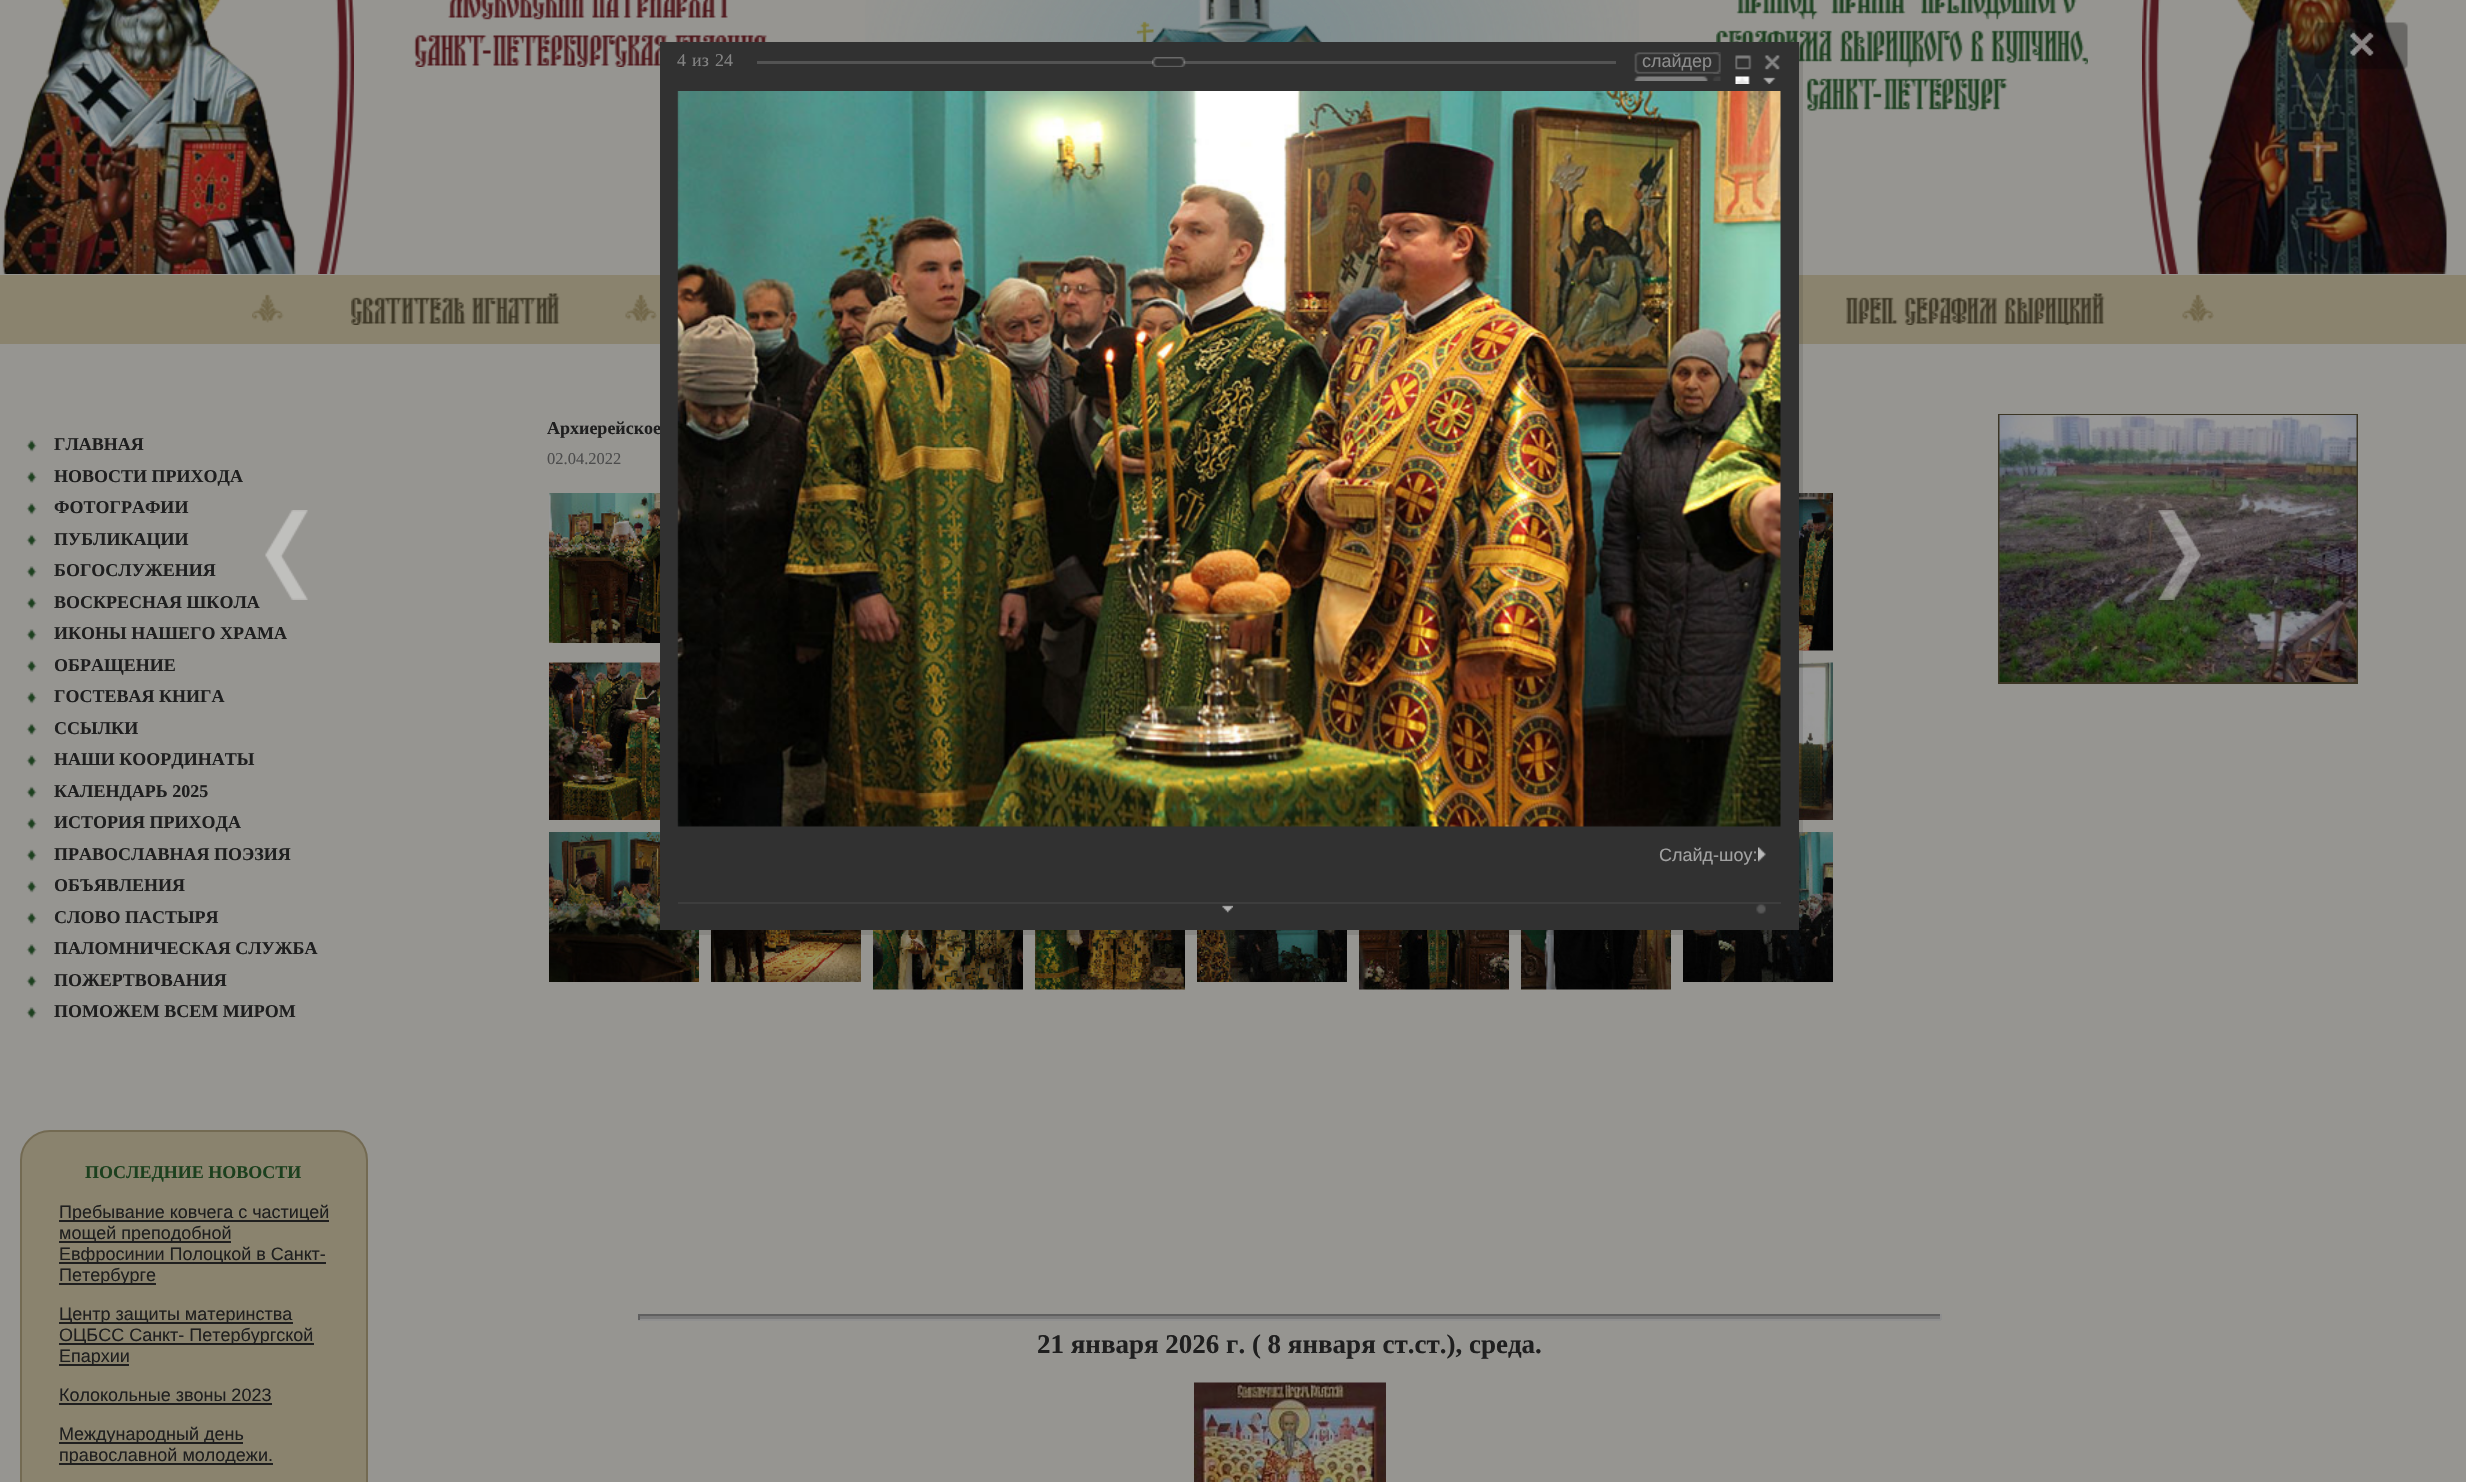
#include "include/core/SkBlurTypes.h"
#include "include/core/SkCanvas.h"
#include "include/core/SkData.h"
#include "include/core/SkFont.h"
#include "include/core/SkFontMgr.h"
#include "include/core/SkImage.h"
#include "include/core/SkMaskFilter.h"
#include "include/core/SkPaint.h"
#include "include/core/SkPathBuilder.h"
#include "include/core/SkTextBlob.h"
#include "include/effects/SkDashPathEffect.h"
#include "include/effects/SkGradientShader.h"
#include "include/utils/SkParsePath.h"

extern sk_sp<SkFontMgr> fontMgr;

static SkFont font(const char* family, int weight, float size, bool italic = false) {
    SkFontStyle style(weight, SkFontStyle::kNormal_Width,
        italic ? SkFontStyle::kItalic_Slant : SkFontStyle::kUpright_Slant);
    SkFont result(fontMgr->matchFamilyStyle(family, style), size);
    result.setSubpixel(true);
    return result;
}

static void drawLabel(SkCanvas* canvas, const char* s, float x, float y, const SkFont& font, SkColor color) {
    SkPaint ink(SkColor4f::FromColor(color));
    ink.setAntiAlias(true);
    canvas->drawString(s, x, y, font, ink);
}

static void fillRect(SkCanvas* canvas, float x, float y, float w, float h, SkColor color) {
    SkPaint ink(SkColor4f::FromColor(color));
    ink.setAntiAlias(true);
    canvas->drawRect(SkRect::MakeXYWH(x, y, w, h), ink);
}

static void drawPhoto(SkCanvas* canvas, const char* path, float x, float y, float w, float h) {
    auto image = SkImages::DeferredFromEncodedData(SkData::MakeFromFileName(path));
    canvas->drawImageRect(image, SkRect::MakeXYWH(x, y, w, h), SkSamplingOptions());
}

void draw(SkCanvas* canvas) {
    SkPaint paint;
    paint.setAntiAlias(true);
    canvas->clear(0xFF969591);
    drawPhoto(canvas, "assets/img1.png", 265, 510, 43, 90);
    drawPhoto(canvas, "assets/img16.png", 414, 0, 353, 67);
    drawPhoto(canvas, "assets/img17.png", 1716, 0, 372, 111);
    fillRect(canvas, 0, 275, 2466, 69, 0xFF8A836E);
    drawPhoto(canvas, "assets/img27.png", 1799, 493, 34, 158);
    drawPhoto(canvas, "assets/img29.png", 1799, 662, 34, 158);
    drawPhoto(canvas, "assets/img30.png", 549, 832, 150, 150);
    drawPhoto(canvas, "assets/img31.png", 711, 930, 150, 52);
    drawPhoto(canvas, "assets/img32.png", 873, 930, 150, 60);
    drawPhoto(canvas, "assets/img33.png", 1035, 930, 150, 60);
    drawPhoto(canvas, "assets/img34.png", 1197, 930, 150, 52);
    drawPhoto(canvas, "assets/img35.png", 1359, 930, 150, 60);
    drawPhoto(canvas, "assets/img36.png", 1521, 930, 150, 60);
    drawPhoto(canvas, "assets/img37.png", 1683, 832, 150, 150);
    fillRect(canvas, 664, 42, 1139, 893, 0x1A000000);
    SkFont font1 = font("Liberation Serif", 700, 18);
    drawLabel(canvas, "Архиерейское", 547, 434, font1, 0xFF1F1F1F);
    fillRect(canvas, 660, 42, 1139, 888, 0xFF313131);
    SkFont font2 = font("Liberation Serif", 400, 18);
    drawLabel(canvas, "4", 677, 66, font2, 0xFF838383);
    drawLabel(canvas, "из", 692, 66, font2, 0xFF838383);
    drawLabel(canvas, "24", 715, 66, font2, 0xFF838383);
    fillRect(canvas, 757, 61, 859, 3, 0xFF535353);
    drawPhoto(canvas, "assets/img2.png", 1152, 57, 34, 10);
    drawPhoto(canvas, "assets/img3.png", 1634, 52, 87, 29);
    SkFont font3 = font("Liberation Sans", 400, 18);
    drawLabel(canvas, "слайдер", 1642, 67, font3, 0xFF8C8C8C);
    drawPhoto(canvas, "assets/img4.png", 1713, 52, 8, 22);
    drawPhoto(canvas, "assets/img5.png", 1735, 55, 17, 29);
    drawPhoto(canvas, "assets/img6.png", 1763, 55, 17, 29);
    drawPhoto(canvas, "assets/img7.png", 677, 91, 1104, 736);
    fillRect(canvas, 678, 902, 1103, 2, 0xFF3D3D3D);
    drawLabel(canvas, "Слайд-шоу:", 1659, 861, font3, 0xFFA2A2A2);
    drawPhoto(canvas, "assets/img8.png", 1758, 847, 8, 15);
    drawPhoto(canvas, "assets/img9.png", 1222, 905, 11, 8);
    drawPhoto(canvas, "assets/img10.png", 1756, 904, 10, 10);
    drawPhoto(canvas, "assets/img19.png", 2197, 0, 250, 274);
    drawPhoto(canvas, "assets/img11.png", 2314, 22, 94, 48);
    paint.setStroke(true);
    paint.setStrokeWidth(2);
    paint.setColor(0xFF3B3524);
    canvas->drawRect(SkRect::MakeXYWH(1999, 415, 358, 268), paint);
    drawPhoto(canvas, "assets/img38.png", 1999, 415, 358, 267);
    drawPhoto(canvas, "assets/img12.png", 2158, 510, 43, 90);
    drawPhoto(canvas, "assets/img13.png", 1, 0, 295, 274);
    drawPhoto(canvas, "assets/img14.png", 318, 0, 36, 274);
    drawPhoto(canvas, "assets/img15.png", 865, 0, 774, 42);
    drawPhoto(canvas, "assets/img18.png", 2142, 0, 36, 274);
    drawPhoto(canvas, "assets/img20.png", 252, 294, 32, 29);
    drawPhoto(canvas, "assets/img21.png", 351, 293, 209, 32);
    drawPhoto(canvas, "assets/img22.png", 625, 294, 32, 30);
    drawPhoto(canvas, "assets/img23.png", 1846, 293, 259, 32);
    drawPhoto(canvas, "assets/img22.png", 2182, 294, 32, 30);
    drawPhoto(canvas, "assets/img24.png", 26, 440, 11, 12);
    drawLabel(canvas, "ГЛАВНАЯ", 54, 450, font1, 0xFF1F1F1F);
    drawPhoto(canvas, "assets/img25.png", 26, 471, 11, 12);
    drawLabel(canvas, "НОВОСТИ ПРИХОДА", 54, 482, font1, 0xFF1F1F1F);
    drawPhoto(canvas, "assets/img24.png", 26, 503, 11, 12);
    drawLabel(canvas, "ФОТОГРАФИИ", 54, 513, font1, 0xFF1F1F1F);
    drawPhoto(canvas, "assets/img25.png", 26, 534, 11, 12);
    drawLabel(canvas, "ПУБЛИКАЦИИ", 54, 545, font1, 0xFF1F1F1F);
    drawPhoto(canvas, "assets/img24.png", 26, 566, 11, 12);
    drawLabel(canvas, "БОГОСЛУЖЕНИЯ", 54, 576, font1, 0xFF1F1F1F);
    drawPhoto(canvas, "assets/img25.png", 26, 597, 11, 12);
    drawLabel(canvas, "ВОСКРЕСНАЯ ШКОЛА", 54, 608, font1, 0xFF1F1F1F);
    drawPhoto(canvas, "assets/img24.png", 26, 629, 11, 12);
    drawLabel(canvas, "ИКОНЫ НАШЕГО ХРАМА", 54, 639, font1, 0xFF1F1F1F);
    drawPhoto(canvas, "assets/img25.png", 26, 660, 11, 12);
    drawLabel(canvas, "ОБРАЩЕНИЕ", 54, 671, font1, 0xFF1F1F1F);
    drawPhoto(canvas, "assets/img24.png", 26, 692, 11, 12);
    drawLabel(canvas, "ГОСТЕВАЯ КНИГА", 54, 702, font1, 0xFF1F1F1F);
    drawPhoto(canvas, "assets/img25.png", 26, 723, 11, 12);
    drawLabel(canvas, "ССЫЛКИ", 54, 734, font1, 0xFF1F1F1F);
    drawPhoto(canvas, "assets/img24.png", 26, 755, 11, 12);
    drawLabel(canvas, "НАШИ КООРДИНАТЫ", 54, 765, font1, 0xFF1F1F1F);
    drawPhoto(canvas, "assets/img25.png", 26, 786, 11, 12);
    drawLabel(canvas, "КАЛЕНДАРЬ 2025", 54, 797, font1, 0xFF1F1F1F);
    drawPhoto(canvas, "assets/img24.png", 26, 818, 11, 12);
    drawLabel(canvas, "ИСТОРИЯ ПРИХОДА", 54, 828, font1, 0xFF1F1F1F);
    drawPhoto(canvas, "assets/img25.png", 26, 849, 11, 12);
    drawLabel(canvas, "ПРАВОСЛАВНАЯ ПОЭЗИЯ", 54, 860, font1, 0xFF1F1F1F);
    drawPhoto(canvas, "assets/img24.png", 26, 881, 11, 12);
    drawLabel(canvas, "ОБЪЯВЛЕНИЯ", 54, 891, font1, 0xFF1F1F1F);
    drawPhoto(canvas, "assets/img25.png", 26, 912, 11, 12);
    drawLabel(canvas, "СЛОВО ПАСТЫРЯ", 54, 923, font1, 0xFF1F1F1F);
    drawPhoto(canvas, "assets/img24.png", 26, 944, 11, 12);
    drawLabel(canvas, "ПАЛОМНИЧЕСКАЯ СЛУЖБА", 54, 954, font1, 0xFF1F1F1F);
    drawPhoto(canvas, "assets/img25.png", 26, 975, 11, 12);
    drawLabel(canvas, "ПОЖЕРТВОВАНИЯ", 54, 986, font1, 0xFF1F1F1F);
    drawPhoto(canvas, "assets/img24.png", 26, 1007, 11, 12);
    drawLabel(canvas, "ПОМОЖЕМ ВСЕМ МИРОМ", 54, 1017, font1, 0xFF1F1F1F);
    paint.setStroke(false);
    paint.setColor(0xFF8A836E);
    canvas->drawRoundRect(SkRect::MakeXYWH(21, 1131, 346, 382), 29, 29, paint);
    paint.setStroke(true);
    paint.setColor(0xFF736A52);
    canvas->drawRoundRect(SkRect::MakeXYWH(21, 1131, 346, 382), 29, 29, paint);
    drawLabel(canvas, "ПОСЛЕДНИЕ НОВОСТИ", 85, 1178, font1, 0xFF1C401E);
    fillRect(canvas, 59, 1220, 270, 2, 0xFF1F1F1F);
    drawLabel(canvas, "Пребывание ковчега с частицей", 59, 1218, font3, 0xFF1F1F1F);
    fillRect(canvas, 59, 1241, 172, 2, 0xFF1F1F1F);
    drawLabel(canvas, "мощей преподобной", 59, 1239, font3, 0xFF1F1F1F);
    fillRect(canvas, 59, 1262, 267, 2, 0xFF1F1F1F);
    drawLabel(canvas, "Евфросинии Полоцкой в Санкт-", 59, 1260, font3, 0xFF1F1F1F);
    fillRect(canvas, 59, 1283, 97, 2, 0xFF1F1F1F);
    drawLabel(canvas, "Петербурге", 59, 1281, font3, 0xFF1F1F1F);
    fillRect(canvas, 59, 1322, 234, 2, 0xFF1F1F1F);
    drawLabel(canvas, "Центр защиты материнства", 59, 1320, font3, 0xFF1F1F1F);
    fillRect(canvas, 59, 1343, 255, 2, 0xFF1F1F1F);
    drawLabel(canvas, "ОЦБСС Санкт- Петербургской", 59, 1341, font3, 0xFF1F1F1F);
    fillRect(canvas, 59, 1364, 70, 2, 0xFF1F1F1F);
    drawLabel(canvas, "Епархии", 59, 1362, font3, 0xFF1F1F1F);
    drawLabel(canvas, "Колокольные звоны 2023", 59, 1401, font3, 0xFF1F1F1F);
    fillRect(canvas, 59, 1403, 213, 2, 0xFF1F1F1F);
    fillRect(canvas, 59, 1442, 184, 2, 0xFF1F1F1F);
    drawLabel(canvas, "Международный день", 59, 1440, font3, 0xFF1F1F1F);
    fillRect(canvas, 59, 1463, 214, 2, 0xFF1F1F1F);
    drawLabel(canvas, "православной молодежи.", 59, 1461, font3, 0xFF1F1F1F);
    SkFont font4 = font("Liberation Serif", 400, 16.5f);
    drawLabel(canvas, "02.04.2022", 547, 464, font4, 0xFF4C4C4C);
    drawPhoto(canvas, "assets/img26.png", 549, 493, 111, 150);
    drawPhoto(canvas, "assets/img28.png", 549, 662, 111, 158);
    fillRect(canvas, 638, 1316, 1303, 3, 0xFF7A7A7A);
    fillRect(canvas, 638, 1314, 1303, 2, 0xFF5F5F5F);
    fillRect(canvas, 1940, 1314, 2, 6, 0xFF8F8F8F);
    fillRect(canvas, 638, 1319, 1303, 2, 0xFF8F8F8F);
    fillRect(canvas, 638, 1314, 2, 6, 0xFF5F5F5F);
    SkFont font5 = font("Liberation Serif", 700, 27);
    drawLabel(canvas, "21 января 2026 г. ( 8 января ст.ст.), среда.", 1037, 1353, font5, 0xFF1F1F1F);
    drawPhoto(canvas, "assets/img39.png", 1194, 1382, 192, 100);
}
